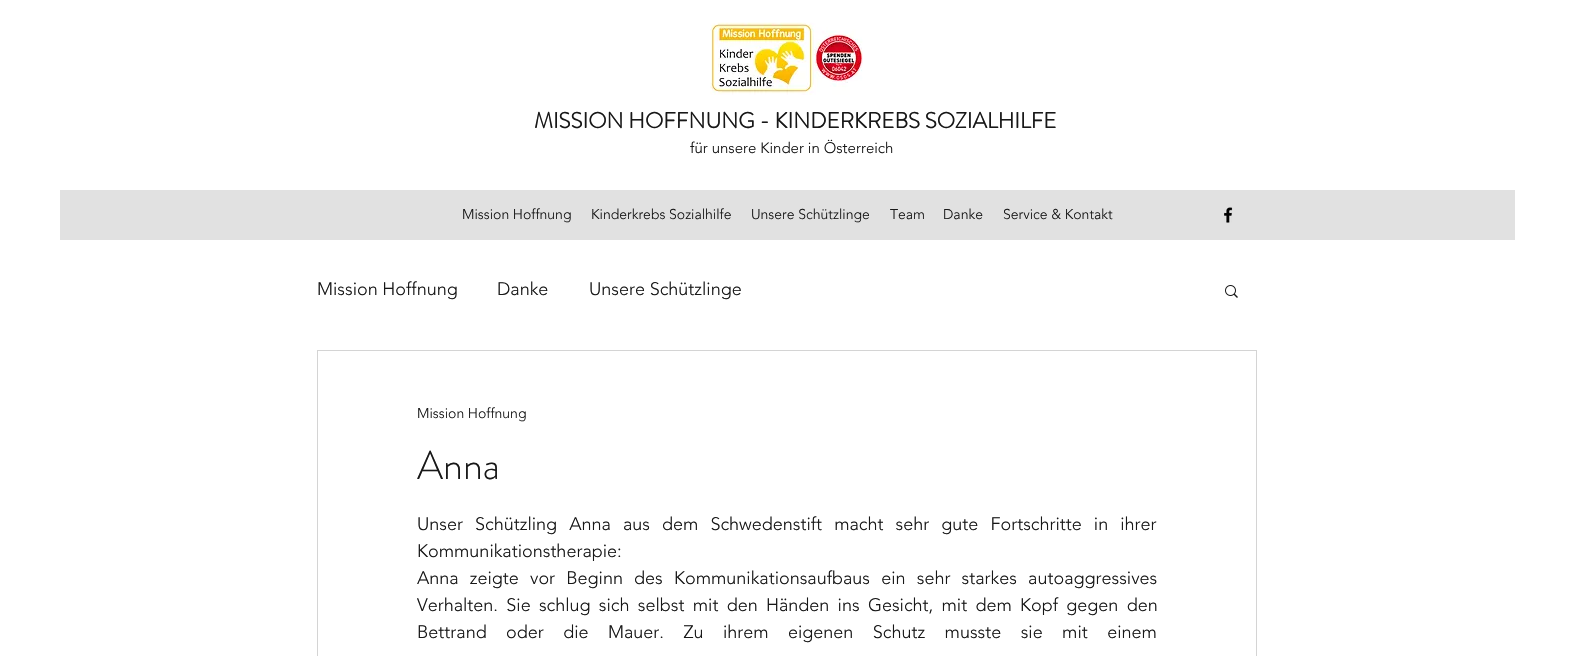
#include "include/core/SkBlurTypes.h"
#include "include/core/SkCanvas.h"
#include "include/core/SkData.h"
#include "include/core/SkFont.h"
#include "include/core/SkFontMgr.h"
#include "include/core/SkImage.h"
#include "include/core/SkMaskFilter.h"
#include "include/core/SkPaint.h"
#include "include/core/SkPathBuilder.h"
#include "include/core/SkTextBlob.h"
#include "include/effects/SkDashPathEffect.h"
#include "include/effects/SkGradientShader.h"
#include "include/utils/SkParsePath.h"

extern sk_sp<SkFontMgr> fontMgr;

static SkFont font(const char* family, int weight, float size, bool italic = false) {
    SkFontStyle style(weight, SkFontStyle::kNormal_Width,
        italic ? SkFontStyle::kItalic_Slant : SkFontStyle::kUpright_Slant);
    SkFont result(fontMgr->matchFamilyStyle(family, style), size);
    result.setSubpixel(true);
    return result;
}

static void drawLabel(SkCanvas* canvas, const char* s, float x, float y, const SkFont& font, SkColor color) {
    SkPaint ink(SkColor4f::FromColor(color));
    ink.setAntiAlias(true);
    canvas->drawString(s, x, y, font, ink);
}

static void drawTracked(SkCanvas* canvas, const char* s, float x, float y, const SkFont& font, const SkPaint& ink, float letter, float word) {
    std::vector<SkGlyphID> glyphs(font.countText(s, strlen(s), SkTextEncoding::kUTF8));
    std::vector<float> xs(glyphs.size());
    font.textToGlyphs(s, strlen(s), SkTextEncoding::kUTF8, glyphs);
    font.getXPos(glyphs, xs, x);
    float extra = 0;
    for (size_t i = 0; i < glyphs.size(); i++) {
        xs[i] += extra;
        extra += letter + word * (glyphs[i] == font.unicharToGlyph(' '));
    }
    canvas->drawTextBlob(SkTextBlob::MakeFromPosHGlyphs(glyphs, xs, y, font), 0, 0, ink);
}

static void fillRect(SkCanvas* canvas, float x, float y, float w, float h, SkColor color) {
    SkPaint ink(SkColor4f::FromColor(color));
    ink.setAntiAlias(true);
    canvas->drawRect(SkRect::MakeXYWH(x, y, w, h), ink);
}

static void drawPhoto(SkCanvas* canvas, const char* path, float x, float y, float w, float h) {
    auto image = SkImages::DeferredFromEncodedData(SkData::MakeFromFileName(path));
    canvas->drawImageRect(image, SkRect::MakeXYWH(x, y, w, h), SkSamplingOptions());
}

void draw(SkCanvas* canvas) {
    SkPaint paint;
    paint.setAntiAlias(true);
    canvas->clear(0xFFFFFFFF);
    drawPhoto(canvas, "assets/img1.png", 710, 22, 153, 73);
    SkFont font1 = font("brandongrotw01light", 700, 22);
    drawLabel(canvas, "MISSION HOFFNUNG - KINDERKREBS SOZIALHILFE", 534, 128, font1, 0xFF181818);
    SkFont font2 = font("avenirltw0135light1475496", 300, 15);
    drawLabel(canvas, "für unsere Kinder in Österreich", 690, 153, font2, 0xFF181818);
    fillRect(canvas, 60, 190, 1455, 50, 0xFFE1E1E1);
    SkFont font3 = font("avenirltw0135light1475496", 300, 14);
    drawLabel(canvas, "Mission Hoffnung", 462, 219, font3, 0xFF181818);
    drawLabel(canvas, "Kinderkrebs Sozialhilfe", 591, 219, font3, 0xFF181818);
    drawLabel(canvas, "Unsere Schützlinge", 751, 219, font3, 0xFF181818);
    drawLabel(canvas, "Team", 890, 219, font3, 0xFF181818);
    drawLabel(canvas, "Danke", 943, 219, font3, 0xFF181818);
    drawLabel(canvas, "Service & Kontakt", 1003, 219, font3, 0xFF181818);
    drawPhoto(canvas, "assets/img2.png", 1224, 207, 9, 16);
    SkFont font4 = font("avenirltw0135light1475496", 300, 18);
    drawLabel(canvas, "Mission Hoffnung", 317, 295, font4, 0xFF181818);
    drawLabel(canvas, "Danke", 497, 295, font4, 0xFF181818);
    drawLabel(canvas, "Unsere Schützlinge", 589, 295, font4, 0xFF181818);
    drawPhoto(canvas, "assets/img3.png", 1225, 285, 13, 13);
    paint.setStroke(true);
    paint.setStrokeWidth(1);
    paint.setColor(0xFFD4D4D4);
    canvas->drawRect(SkRect::MakeXYWH(317.5f, 350.5f, 939, 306), paint);
    drawLabel(canvas, "Mission Hoffnung", 417, 418, font3, 0xFF181818);
    SkFont font5 = font("brandongrotw01light", 300, 40);
    drawLabel(canvas, "Anna", 417, 479, font5, 0xFF181818);
    paint.setStroke(false);
    paint.setColor(0xFF181818);
    drawTracked(canvas, "Unser Schützling Anna aus dem Schwedenstift macht sehr gute Fortschritte in ihrer", 417, 530, font4, paint, 0, 7.4f);
    drawLabel(canvas, "Kommunikationstherapie:", 417, 557, font4, 0xFF181818);
    drawTracked(canvas, "Anna zeigte vor Beginn des Kommunikationsaufbaus ein sehr starkes autoaggressives", 417, 584, font4, paint, 0, 6.5f);
    drawTracked(canvas, "Verhalten. Sie schlug sich selbst mit den Händen ins Gesicht, mit dem Kopf gegen den", 417, 611, font4, paint, 0, 3.6f);
    drawTracked(canvas, "Bettrand oder die Mauer. Zu ihrem eigenen Schutz musste sie mit einem", 417, 638, font4, paint, 0, 14.75f);
}
